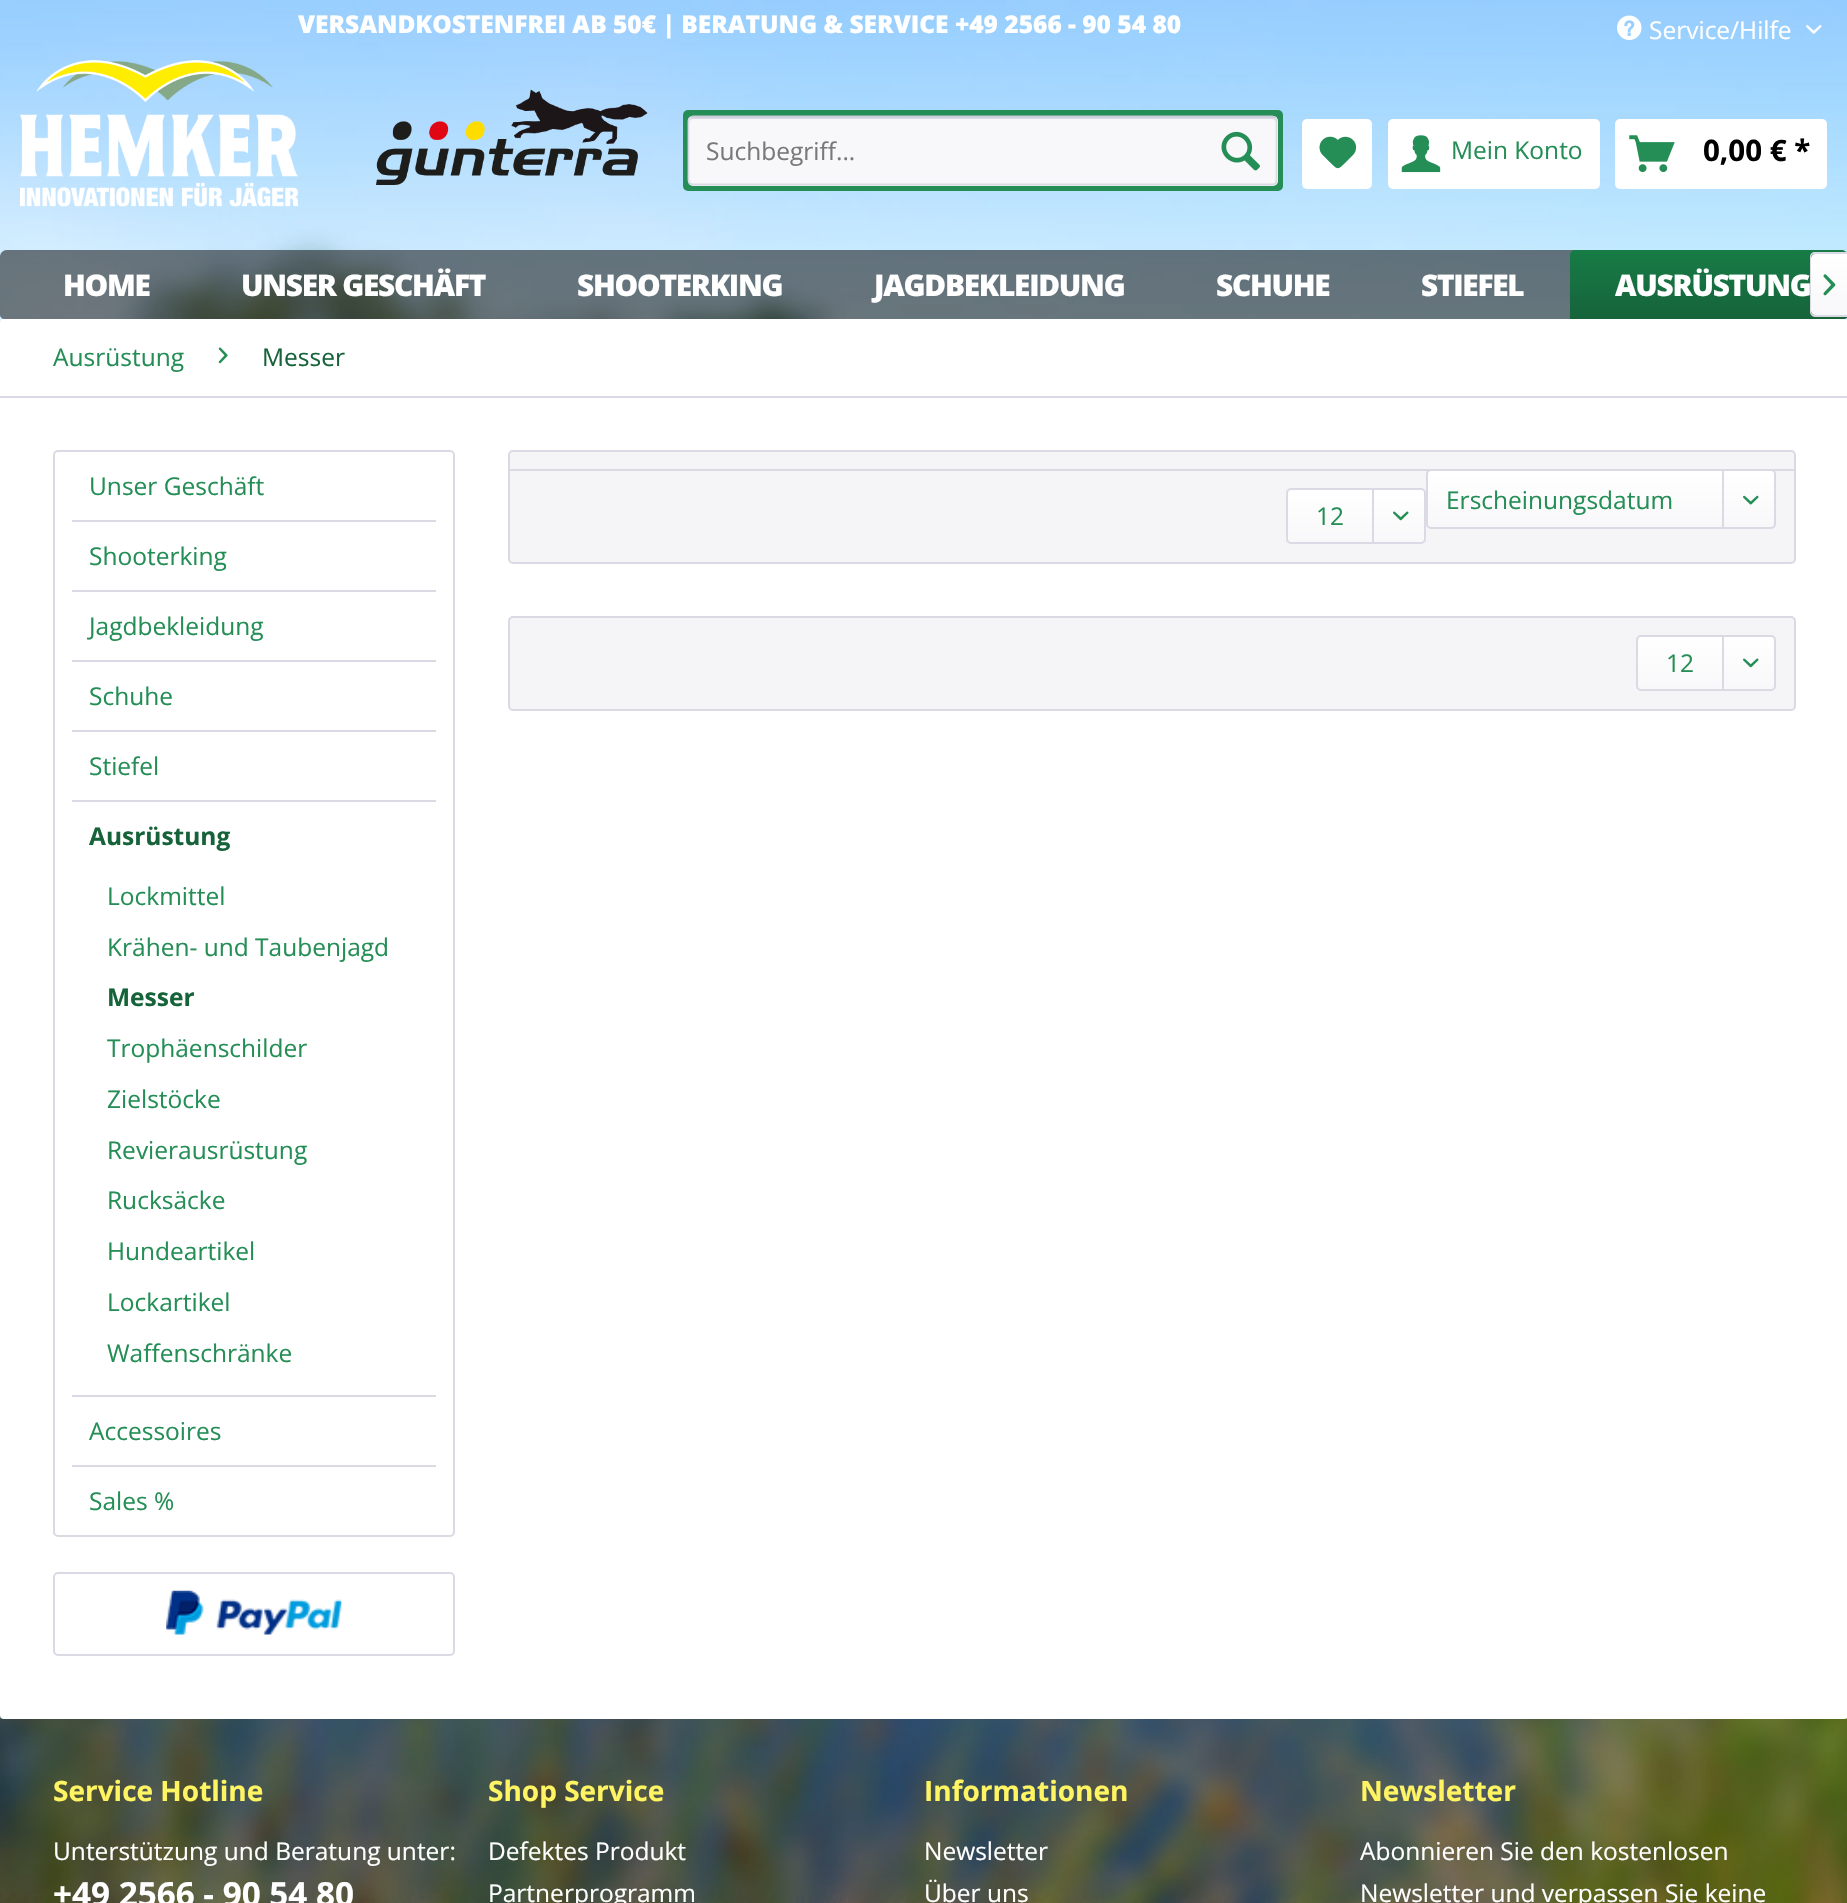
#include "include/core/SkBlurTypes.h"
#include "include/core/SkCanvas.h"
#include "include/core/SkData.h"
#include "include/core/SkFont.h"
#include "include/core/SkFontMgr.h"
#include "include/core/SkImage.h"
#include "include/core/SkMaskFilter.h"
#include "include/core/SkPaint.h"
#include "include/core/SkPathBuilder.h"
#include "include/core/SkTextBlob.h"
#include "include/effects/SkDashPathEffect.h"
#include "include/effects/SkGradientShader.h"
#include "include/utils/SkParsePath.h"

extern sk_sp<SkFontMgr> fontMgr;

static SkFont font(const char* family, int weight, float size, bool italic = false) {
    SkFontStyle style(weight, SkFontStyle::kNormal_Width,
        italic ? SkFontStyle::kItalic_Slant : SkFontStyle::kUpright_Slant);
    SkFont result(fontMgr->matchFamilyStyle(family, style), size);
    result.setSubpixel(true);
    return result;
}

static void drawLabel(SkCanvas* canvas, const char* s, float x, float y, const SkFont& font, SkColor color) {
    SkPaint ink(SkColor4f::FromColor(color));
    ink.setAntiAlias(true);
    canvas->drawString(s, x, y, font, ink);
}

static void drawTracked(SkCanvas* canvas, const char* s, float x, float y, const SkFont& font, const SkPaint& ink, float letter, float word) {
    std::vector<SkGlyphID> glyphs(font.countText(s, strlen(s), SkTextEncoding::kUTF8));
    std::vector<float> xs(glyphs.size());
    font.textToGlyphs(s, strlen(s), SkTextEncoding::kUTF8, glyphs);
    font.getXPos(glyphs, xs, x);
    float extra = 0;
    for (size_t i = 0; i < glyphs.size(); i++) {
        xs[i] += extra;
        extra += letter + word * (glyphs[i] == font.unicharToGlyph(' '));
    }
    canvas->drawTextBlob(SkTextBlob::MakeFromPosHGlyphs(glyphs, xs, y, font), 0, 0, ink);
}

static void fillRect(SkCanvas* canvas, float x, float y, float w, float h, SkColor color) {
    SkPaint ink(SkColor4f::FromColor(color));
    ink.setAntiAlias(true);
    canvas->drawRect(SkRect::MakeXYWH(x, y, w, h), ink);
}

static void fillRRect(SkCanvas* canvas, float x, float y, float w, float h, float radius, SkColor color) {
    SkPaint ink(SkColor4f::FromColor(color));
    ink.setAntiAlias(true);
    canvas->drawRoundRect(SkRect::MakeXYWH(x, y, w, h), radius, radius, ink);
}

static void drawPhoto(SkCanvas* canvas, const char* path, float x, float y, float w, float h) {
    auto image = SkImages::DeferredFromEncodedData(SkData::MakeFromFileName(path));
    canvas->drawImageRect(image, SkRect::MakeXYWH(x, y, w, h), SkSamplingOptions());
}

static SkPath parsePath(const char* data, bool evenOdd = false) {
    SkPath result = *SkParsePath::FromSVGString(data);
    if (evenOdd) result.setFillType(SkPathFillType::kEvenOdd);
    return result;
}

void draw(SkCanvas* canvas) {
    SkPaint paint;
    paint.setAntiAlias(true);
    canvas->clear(0xFFFFFFFF);
    drawPhoto(canvas, "assets/img1.png", 0, 0, 1847, 1903);
    SkFont font1 = font("Open Sans", 800, 24.5f);
    drawLabel(canvas, "VERSANDKOSTENFREI AB 50€ | BERATUNG & SERVICE +49 2566 - 90 54 80", 298, 33, font1, 0xFFFFFFFF);
    drawPhoto(canvas, "assets/img2.png", 1617, 15, 25, 25);
    SkFont font2 = font("Open Sans", 400, 24.5f);
    drawLabel(canvas, "Service/Hilfe", 1649, 39, font2, 0xFFFFFFFF);
    drawPhoto(canvas, "assets/img3.png", 1806, 25, 16, 9);
    drawPhoto(canvas, "assets/img4.png", 20, 60, 628, 147);
    fillRRect(canvas, 683, 110, 600, 81, 5, 0xFF258E56);
    fillRRect(canvas, 688, 116, 590, 70, 5, 0xFFF8F8FA);
    paint.setColor(0xFFDADAE5);
    canvas->drawPath(parsePath("M693 119H1272C1274 119 1276 121 1276 122V121C1276 119 1274 117 1272 117H694C692 117 690 119 690 121V122C690 121 691 119 693 119Z"), paint);
    paint.setStroke(true);
    paint.setStrokeWidth(1.8f);
    paint.setColor(0xFFCBCBDB);
    canvas->drawPath(parsePath("M690 117.5L693 116.5H1272L1275.5 117.5"), paint);
    paint.setColor(0xFFDADAE5);
    canvas->drawPath(parsePath("M1275.5 117.5C1276 118.5 1276.5 119.5 1276.5 121V180C1276.5 181.5 1276 182.5 1275.5 183.5C1274.5 184 1273.5 184.5 1272 184.5H693C692 184.5 690.5 184 690 183.5C689 182.5 688.5 181.5 688.5 180V121C688.5 119.5 689 118.5 690 117.5"), paint);
    drawLabel(canvas, "Suchbegriff...", 706, 160, font2, 0xFF797979);
    drawPhoto(canvas, "assets/img5.png", 1221, 131, 39, 40);
    fillRRect(canvas, 1302, 119, 70, 70, 5, 0xFFFFFFFF);
    drawPhoto(canvas, "assets/img6.png", 1319, 136, 38, 33);
    fillRRect(canvas, 1388, 119, 212, 70, 5, 0xFFFFFFFF);
    drawPhoto(canvas, "assets/img7.png", 1401, 135, 40, 38);
    drawLabel(canvas, "Mein Konto", 1451, 159, font2, 0xFF258E56);
    fillRRect(canvas, 1615, 119, 212, 70, 5, 0xFFFFFFFF);
    drawPhoto(canvas, "assets/img8.png", 1629, 135, 46, 37);
    SkFont font3 = font("Open Sans", 700, 29.5f);
    drawLabel(canvas, "0,00 € *", 1703, 161, font3, 0xFF000000);
    paint.setStroke(false);
    paint.setColor(0x4D000000);
    canvas->drawPath(parsePath("M7 250H1841C1845 250 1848 253 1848 257V315C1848 317 1846 319 1844 319H4C2 319 0 317 0 315V257C0 253 3 250 7 250Z"), paint);
    canvas->drawPath(parsePath("M7 250H1841C1845 250 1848 253 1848 257V315C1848 317 1846 319 1844 319H4C2 319 0 317 0 315V257C0 253 3 250 7 250Z"), paint);
    SkFont font4 = font("Open Sans", 800, 29.75f);
    paint.setColor(0xFFFFFFFF);
    drawTracked(canvas, "HOME", 63, 296, font4, paint, -1.25f, 0);
    drawTracked(canvas, "UNSER GESCHÄFT", 241, 296, font4, paint, -1.25f, 0);
    drawTracked(canvas, "SHOOTERKING", 577, 296, font4, paint, -1.25f, 0);
    drawTracked(canvas, "JAGDBEKLEIDUNG", 874, 296, font4, paint, -1.25f, 0);
    drawTracked(canvas, "SCHUHE", 1216, 296, font4, paint, -1.25f, 0);
    drawTracked(canvas, "STIEFEL", 1421, 296, font4, paint, -1.25f, 0);
    {
        const SkColor colors[] = {0xFF177C46, 0xFF16633A};
        const float stops[] = {0, 1};
        const SkPoint ends[] = {{1713, 250}, {1713, 319}};
        paint.setShader(SkGradientShader::MakeLinear(ends, colors, stops, 2, SkTileMode::kClamp));
        paint.setAlpha(255);
    }
    canvas->drawPath(parsePath("M1575 250H1841C1845 250 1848 253 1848 257V315C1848 317 1846 319 1844 319H1570V255C1570 252 1572 250 1575 250Z"), paint);
    paint.setShader(nullptr);
    paint.setColor(0xFFFFFFFF);
    drawTracked(canvas, "AUSRÜSTUNG", 1615, 296, font4, paint, -1.25f, 0);
    {
        const SkColor colors[] = {0xFFFFFFFF, 0xFFF8F8FA};
        const float stops[] = {0, 1};
        const SkPoint ends[] = {{1830, 254}, {1830, 315}};
        paint.setShader(SkGradientShader::MakeLinear(ends, colors, stops, 2, SkTileMode::kClamp));
        paint.setAlpha(255);
    }
    canvas->drawPath(parsePath("M1815 254H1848V315H1815C1813 315 1811 313 1811 311V258C1811 256 1813 254 1815 254Z"), paint);
    paint.setShader(nullptr);
    paint.setColor(0xFFDADAE5);
    canvas->drawPath(parsePath("M1815 252H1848V317H1815C1812 317 1810 314 1810 312V257C1810 254 1812 252 1815 252ZM1815 254H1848V315H1815C1813 315 1811 313 1811 312V257C1811 255 1813 254 1815 254Z", true), paint);
    drawPhoto(canvas, "assets/img9.png", 1823, 274, 13, 22);
    fillRRect(canvas, 0, 319, 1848, 1400, 4, 0xFFFFFFFF);
    fillRect(canvas, 0, 396, 1847, 2, 0xFFDADAE5);
    drawLabel(canvas, "Ausrüstung", 53, 366, font2, 0xFF258E56);
    drawPhoto(canvas, "assets/img10.png", 218, 347, 10, 17);
    drawLabel(canvas, "Messer", 262, 366, font2, 0xFF16633A);
    paint.setStroke(true);
    paint.setStrokeWidth(2);
    canvas->drawRoundRect(SkRect::MakeXYWH(54, 451, 400, 1085), 4, 4, paint);
    fillRect(canvas, 72, 520, 364, 2, 0xFFDADAE5);
    drawLabel(canvas, "Unser Geschäft", 89, 495, font2, 0xFF258E56);
    fillRect(canvas, 72, 590, 364, 2, 0xFFDADAE5);
    drawLabel(canvas, "Shooterking", 89, 565, font2, 0xFF258E56);
    fillRect(canvas, 72, 660, 364, 2, 0xFFDADAE5);
    drawLabel(canvas, "Jagdbekleidung", 89, 635, font2, 0xFF258E56);
    fillRect(canvas, 72, 730, 364, 2, 0xFFDADAE5);
    drawLabel(canvas, "Schuhe", 89, 705, font2, 0xFF258E56);
    fillRect(canvas, 72, 800, 364, 2, 0xFFDADAE5);
    drawLabel(canvas, "Stiefel", 89, 775, font2, 0xFF258E56);
    fillRect(canvas, 72, 1395, 364, 2, 0xFFDADAE5);
    SkFont font5 = font("Open Sans", 700, 24.5f);
    drawLabel(canvas, "Ausrüstung", 89, 845, font5, 0xFF16633A);
    drawLabel(canvas, "Lockmittel", 107, 905, font2, 0xFF258E56);
    drawLabel(canvas, "Krähen- und Taubenjagd", 107, 956, font2, 0xFF258E56);
    drawLabel(canvas, "Messer", 107, 1006, font5, 0xFF16633A);
    drawLabel(canvas, "Trophäenschilder", 107, 1057, font2, 0xFF258E56);
    drawLabel(canvas, "Zielstöcke", 107, 1108, font2, 0xFF258E56);
    drawLabel(canvas, "Revierausrüstung", 107, 1159, font2, 0xFF258E56);
    drawLabel(canvas, "Rucksäcke", 107, 1209, font2, 0xFF258E56);
    drawLabel(canvas, "Hundeartikel", 107, 1260, font2, 0xFF258E56);
    drawLabel(canvas, "Lockartikel", 107, 1311, font2, 0xFF258E56);
    drawLabel(canvas, "Waffenschränke", 107, 1362, font2, 0xFF258E56);
    fillRect(canvas, 72, 1465, 364, 2, 0xFFDADAE5);
    drawLabel(canvas, "Accessoires", 89, 1440, font2, 0xFF258E56);
    drawLabel(canvas, "Sales %", 89, 1510, font2, 0xFF258E56);
    canvas->drawRoundRect(SkRect::MakeXYWH(54, 1573, 400, 82), 4, 4, paint);
    drawPhoto(canvas, "assets/img11.png", 166, 1590, 176, 45);
    paint.setStroke(false);
    paint.setColor(0xFFF5F5F8);
    canvas->drawRoundRect(SkRect::MakeXYWH(509, 451, 1286, 112), 4, 4, paint);
    paint.setStroke(true);
    paint.setColor(0xFFDADAE5);
    canvas->drawRoundRect(SkRect::MakeXYWH(509, 451, 1286, 112), 4, 4, paint);
    fillRect(canvas, 509, 469, 1285, 2, 0xFFDADAE5);
    paint.setStroke(false);
    {
        const SkColor colors[] = {0xFFFFFFFF, 0xFFF8F8FA};
        const float stops[] = {0, 1};
        const SkPoint ends[] = {{1356, 490}, {1356, 543}};
        paint.setShader(SkGradientShader::MakeLinear(ends, colors, stops, 2, SkTileMode::kClamp));
        paint.setAlpha(255);
    }
    canvas->drawRoundRect(SkRect::MakeXYWH(1288, 490, 137, 53), 4, 4, paint);
    paint.setStroke(true);
    paint.setShader(nullptr);
    paint.setColor(0xFFDADAE5);
    canvas->drawRoundRect(SkRect::MakeXYWH(1287, 489, 138, 54), 4, 4, paint);
    drawLabel(canvas, "12", 1316, 525, font2, 0xFF258E56);
    fillRect(canvas, 1372, 490, 2, 54, 0xFFDADAE5);
    drawPhoto(canvas, "assets/img12.png", 1393, 511, 16, 10);
    paint.setStroke(false);
    {
        const SkColor colors[] = {0xFFFFFFFF, 0xFFF8F8FA};
        const float stops[] = {0, 1};
        const SkPoint ends[] = {{1601, 471}, {1601, 527}};
        paint.setShader(SkGradientShader::MakeLinear(ends, colors, stops, 2, SkTileMode::kClamp));
        paint.setAlpha(255);
    }
    canvas->drawRoundRect(SkRect::MakeXYWH(1428, 471, 347, 56), 4, 4, paint);
    paint.setStroke(true);
    paint.setShader(nullptr);
    paint.setColor(0xFFDADAE5);
    canvas->drawRoundRect(SkRect::MakeXYWH(1427, 470, 348, 58), 4, 4, paint);
    drawLabel(canvas, "Erscheinungsdatum", 1446, 509, font2, 0xFF258E56);
    fillRect(canvas, 1722, 471, 2, 58, 0xFFDADAE5);
    drawPhoto(canvas, "assets/img13.png", 1743, 495, 16, 10);
    paint.setStroke(false);
    paint.setColor(0xFFF5F5F8);
    canvas->drawRoundRect(SkRect::MakeXYWH(509, 617, 1286, 93), 4, 4, paint);
    paint.setStroke(true);
    paint.setColor(0xFFDADAE5);
    canvas->drawRoundRect(SkRect::MakeXYWH(509, 617, 1286, 93), 4, 4, paint);
    paint.setStroke(false);
    {
        const SkColor colors[] = {0xFFFFFFFF, 0xFFF8F8FA};
        const float stops[] = {0, 1};
        const SkPoint ends[] = {{1706, 637}, {1706, 690}};
        paint.setShader(SkGradientShader::MakeLinear(ends, colors, stops, 2, SkTileMode::kClamp));
        paint.setAlpha(255);
    }
    canvas->drawRoundRect(SkRect::MakeXYWH(1638, 637, 137, 53), 4, 4, paint);
    paint.setStroke(true);
    paint.setShader(nullptr);
    paint.setColor(0xFFDADAE5);
    canvas->drawRoundRect(SkRect::MakeXYWH(1637, 636, 138, 54), 4, 4, paint);
    drawLabel(canvas, "12", 1666, 672, font2, 0xFF258E56);
    fillRect(canvas, 1722, 637, 2, 54, 0xFFDADAE5);
    drawPhoto(canvas, "assets/img12.png", 1743, 658, 16, 10);
    fillRect(canvas, 0, 1719, 1847, 184, 0x4D000000);
    SkFont font6 = font("Open Sans", 700, 28);
    drawLabel(canvas, "Service Hotline", 53, 1801, font6, 0xFFFFF461);
    drawLabel(canvas, "Unterstützung und Beratung unter:", 53, 1860, font2, 0xFFFFFFFF);
    SkFont font7 = font("Open Sans", 700, 33.25f);
    drawLabel(canvas, "+49 2566 - 90 54 80", 53, 1906, font7, 0xFFFFFFFF);
    drawLabel(canvas, "Shop Service", 488, 1801, font6, 0xFFFFF461);
    drawLabel(canvas, "Defektes Produkt", 488, 1860, font2, 0xFFFFFFFF);
    drawLabel(canvas, "Partnerprogramm", 488, 1902, font2, 0xFFFFFFFF);
    drawLabel(canvas, "Informationen", 924, 1801, font6, 0xFFFFF461);
    drawLabel(canvas, "Newsletter", 924, 1860, font2, 0xFFFFFFFF);
    drawLabel(canvas, "Über uns", 924, 1902, font2, 0xFFFFFFFF);
    drawLabel(canvas, "Newsletter", 1360, 1801, font6, 0xFFFFF461);
    drawLabel(canvas, "Abonnieren Sie den kostenlosen", 1360, 1860, font2, 0xFFFFFFFF);
    drawLabel(canvas, "Newsletter und verpassen Sie keine", 1360, 1902, font2, 0xFFFFFFFF);
}
